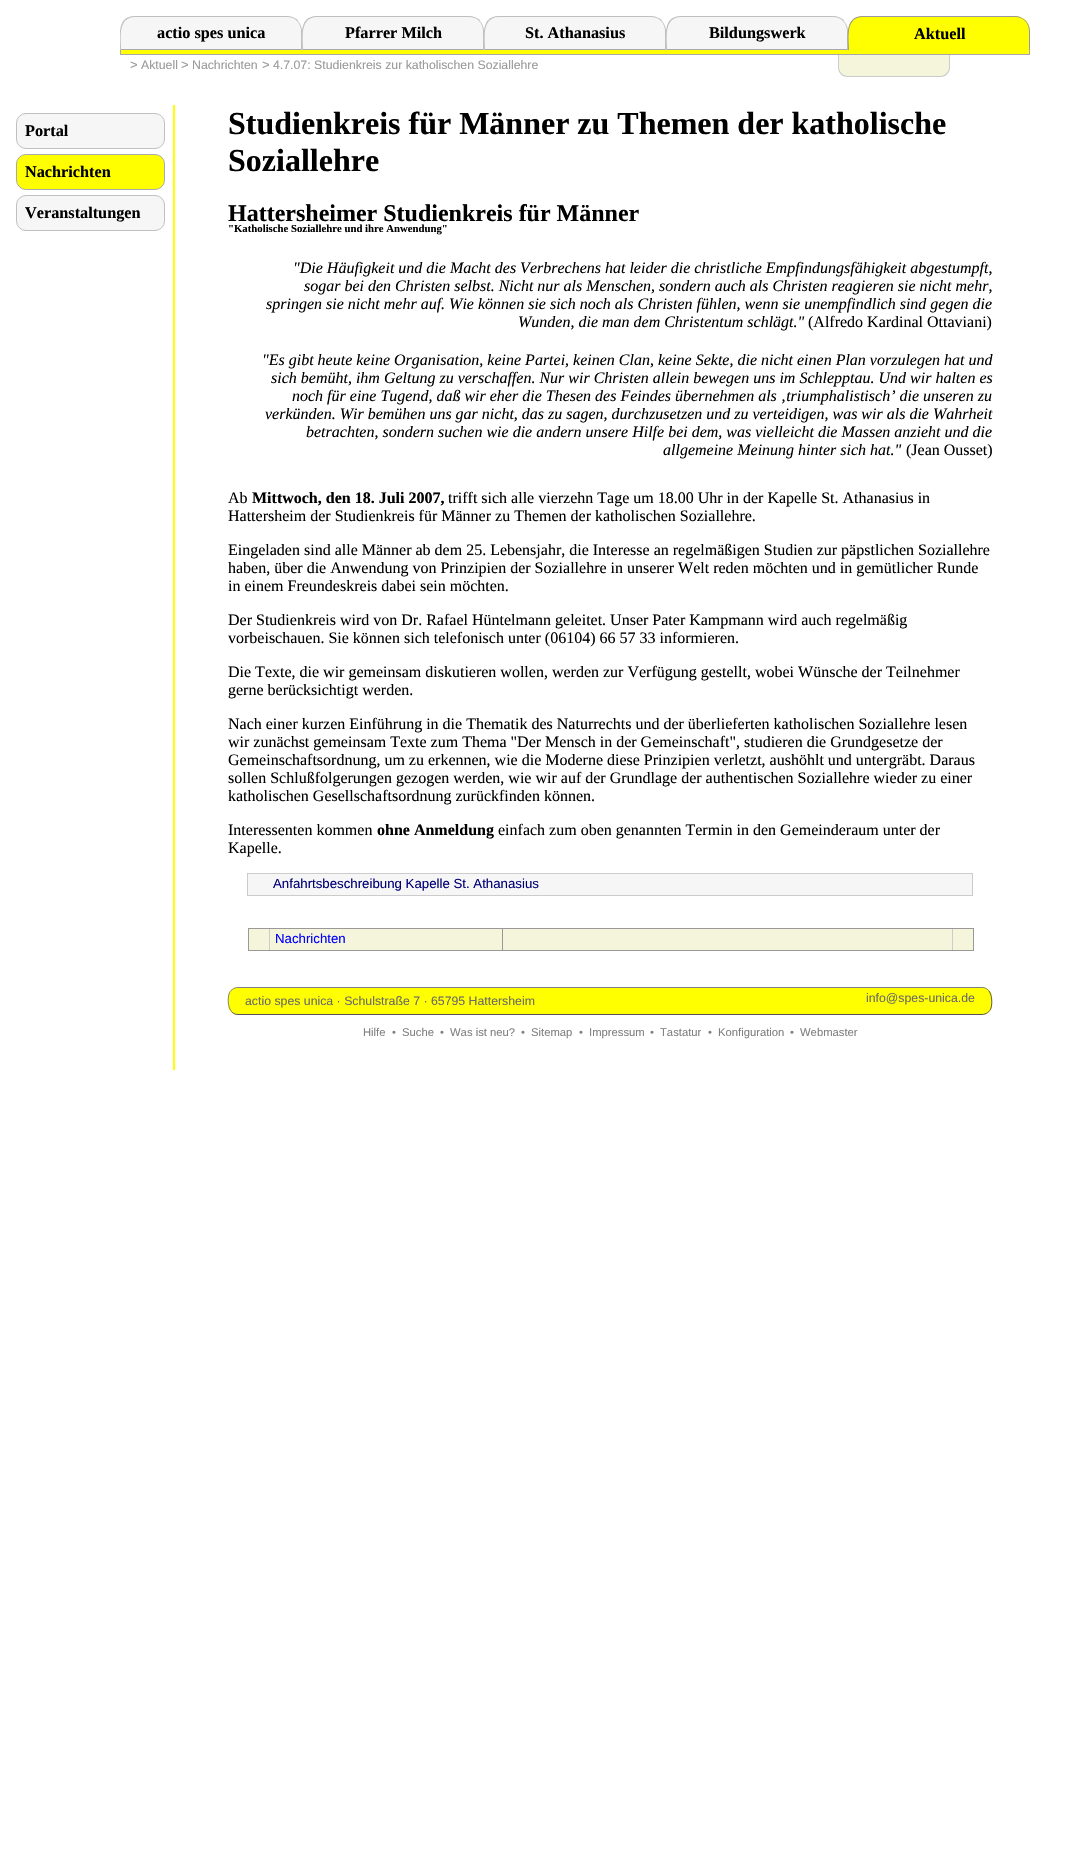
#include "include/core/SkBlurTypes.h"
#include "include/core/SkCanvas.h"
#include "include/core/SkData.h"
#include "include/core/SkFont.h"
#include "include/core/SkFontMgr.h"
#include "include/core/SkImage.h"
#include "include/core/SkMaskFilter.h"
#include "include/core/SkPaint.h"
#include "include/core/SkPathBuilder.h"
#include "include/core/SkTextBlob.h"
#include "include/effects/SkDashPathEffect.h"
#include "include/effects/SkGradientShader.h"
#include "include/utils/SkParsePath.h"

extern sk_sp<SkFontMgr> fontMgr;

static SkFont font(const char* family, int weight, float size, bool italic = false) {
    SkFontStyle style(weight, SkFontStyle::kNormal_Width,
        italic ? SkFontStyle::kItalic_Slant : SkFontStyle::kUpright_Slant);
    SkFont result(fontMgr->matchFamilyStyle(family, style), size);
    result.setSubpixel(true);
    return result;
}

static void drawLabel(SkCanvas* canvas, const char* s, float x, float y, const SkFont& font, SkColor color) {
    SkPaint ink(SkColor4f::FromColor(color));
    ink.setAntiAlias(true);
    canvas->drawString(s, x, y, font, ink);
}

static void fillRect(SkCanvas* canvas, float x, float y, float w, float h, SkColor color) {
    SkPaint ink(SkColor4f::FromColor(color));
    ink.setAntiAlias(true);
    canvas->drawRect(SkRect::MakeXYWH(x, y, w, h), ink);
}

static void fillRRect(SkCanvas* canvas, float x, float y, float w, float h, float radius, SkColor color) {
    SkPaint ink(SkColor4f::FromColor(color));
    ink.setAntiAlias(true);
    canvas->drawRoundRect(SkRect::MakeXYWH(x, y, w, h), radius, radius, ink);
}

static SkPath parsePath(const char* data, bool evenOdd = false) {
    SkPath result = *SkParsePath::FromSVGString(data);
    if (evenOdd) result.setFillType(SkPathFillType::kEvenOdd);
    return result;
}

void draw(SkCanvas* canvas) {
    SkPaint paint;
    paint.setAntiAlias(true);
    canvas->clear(0xFFFFFFFF);
    paint.setColor(0xFFF6F6F6);
    canvas->drawPath(parsePath("M135 16H287C295.5 16 302 22.5 302 31V50H120V31C120 22.5 126.5 16 135 16Z"), paint);
    paint.setColor(0xFFC0C0C0);
    canvas->drawPath(parsePath("M135 16C130 16 126 18 124 20L125 21C127 19 130 17 135 17H287C291 17 294 18 297 21L298 20C295 18 291 16 287 16Z"), paint);
    canvas->drawPath(parsePath("M302 50V31C302 27 300 23 297.5 20.5L297 21C299.5 23.5 301 27 301 31V49Z"), paint);
    paint.setColor(0xFFA9A9A9);
    canvas->drawPath(parsePath("M302 50L301 49H121L120 50Z"), paint);
    paint.setColor(0xFFC0C0C0);
    canvas->drawPath(parsePath("M120 50V31C120.5 26.5 121.5 23 124 20L125 21C119 28 121 40 121 49Z"), paint);
    SkFont font1 = font("Liberation Serif", 700, 16.25f);
    drawLabel(canvas, "actio spes unica", 157, 38, font1, 0xFF000000);
    paint.setColor(0xFFF6F6F6);
    canvas->drawPath(parsePath("M317 16H469C477.5 16 484 22.5 484 31V50H302V31C302 22.5 308.5 16 317 16Z"), paint);
    paint.setColor(0xFFC0C0C0);
    canvas->drawPath(parsePath("M317 16C312 16 308 18 306 20L307 21C309 19 312 17 317 17H469C473 17 476 18 479 21L480 20C477 18 473 16 469 16Z"), paint);
    canvas->drawPath(parsePath("M484 50V31C484 27 482 23 479.5 20.5L479 21C481.5 23.5 483 27 483 31V49Z"), paint);
    paint.setColor(0xFFA9A9A9);
    canvas->drawPath(parsePath("M484 50L483 49H303L302 50Z"), paint);
    paint.setColor(0xFFC0C0C0);
    canvas->drawPath(parsePath("M302 50V31C302.5 26.5 303.5 23 306 20L307 21C301 28 303 40 303 49Z"), paint);
    drawLabel(canvas, "Pfarrer Milch", 345, 38, font1, 0xFF000000);
    paint.setColor(0xFFF6F6F6);
    canvas->drawPath(parsePath("M499 16H651C659.5 16 666 22.5 666 31V50H484V31C484 22.5 490.5 16 499 16Z"), paint);
    paint.setColor(0xFFC0C0C0);
    canvas->drawPath(parsePath("M499 16C494 16 490 18 488 20L489 21C491 19 494 17 499 17H651C655 17 658 18 661 21L662 20C659 18 655 16 651 16Z"), paint);
    canvas->drawPath(parsePath("M666 50V31C666 27 664 23 661.5 20.5L661 21C663.5 23.5 665 27 665 31V49Z"), paint);
    paint.setColor(0xFFA9A9A9);
    canvas->drawPath(parsePath("M666 50L665 49H485L484 50Z"), paint);
    paint.setColor(0xFFC0C0C0);
    canvas->drawPath(parsePath("M484 50V31C484.5 26.5 485.5 23 488 20L489 21C483 28 485 40 485 49Z"), paint);
    drawLabel(canvas, "St. Athanasius", 525, 38, font1, 0xFF000000);
    paint.setColor(0xFFF6F6F6);
    canvas->drawPath(parsePath("M681 16H833C841.5 16 848 22.5 848 31V50H666V31C666 22.5 672.5 16 681 16Z"), paint);
    paint.setColor(0xFFC0C0C0);
    canvas->drawPath(parsePath("M681 16C676 16 672 18 670 20L671 21C673 19 676 17 681 17H833C837 17 840 18 843 21L844 20C841 18 837 16 833 16Z"), paint);
    canvas->drawPath(parsePath("M848 50V31C848 27 846 23 843.5 20.5L843 21C845.5 23.5 847 27 847 31V49Z"), paint);
    paint.setColor(0xFFA9A9A9);
    canvas->drawPath(parsePath("M848 50L847 49H667L666 50Z"), paint);
    paint.setColor(0xFFC0C0C0);
    canvas->drawPath(parsePath("M666 50V31C666.5 26.5 667.5 23 670 20L671 21C665 28 667 40 667 49Z"), paint);
    drawLabel(canvas, "Bildungswerk", 709, 38, font1, 0xFF000000);
    paint.setColor(0xFFFFFF00);
    canvas->drawPath(parsePath("M863 16H1015C1023.5 16 1030 22.5 1030 31V50H848V31C848 22.5 854.5 16 863 16Z"), paint);
    paint.setColor(0xFF999999);
    canvas->drawPath(parsePath("M863 16H1015C1023 16 1030 23 1030 31V50H848C848 38 844 16 863 16ZM863 17H1015C1023 17 1029 23 1029 31V50H849C849 39 845 17 863 17Z", true), paint);
    drawLabel(canvas, "Aktuell", 914, 39, font1, 0xFF000000);
    fillRect(canvas, 120, 50, 910, 4, 0xFFFFFF00);
    fillRect(canvas, 1029, 50, 1, 5, 0xFFA9A9A9);
    fillRect(canvas, 120, 54, 910, 1, 0xFFA9A9A9);
    fillRect(canvas, 120, 50, 1, 5, 0xFFA9A9A9);
    SkFont font2 = font("Liberation Sans", 400, 13);
    drawLabel(canvas, ">", 130, 69, font2, 0xFF999999);
    SkFont font3 = font("Liberation Sans", 400, 12.3f);
    drawLabel(canvas, "Aktuell", 141, 69, font3, 0xFF999999);
    drawLabel(canvas, ">", 181, 69, font2, 0xFF999999);
    drawLabel(canvas, "Nachrichten", 192, 69, font3, 0xFF999999);
    drawLabel(canvas, ">", 262, 69, font2, 0xFF999999);
    drawLabel(canvas, "4.7.07: Studienkreis zur katholischen Soziallehre", 273, 69, font3, 0xFF999999);
    paint.setColor(0xFFF5F5DC);
    canvas->drawPath(parsePath("M838 55H950V67C950 72.5 945.5 77 940 77H848C842.5 77 838 72.5 838 67Z"), paint);
    paint.setColor(0xFFCCCCCC);
    canvas->drawPath(parsePath("M838 55H950V67C950 73 946 77 940 77H848C842 77 838 73 838 67ZM839 55H949V67C949 72 945 76 940 76H848C843 76 839 72 839 67Z", true), paint);
    fillRect(canvas, 173, 105, 2, 965, 0xFFFFFF00);
    paint.setColor(0xFFF6F6F6);
    canvas->drawRoundRect(SkRect::MakeXYWH(16.5f, 113.5f, 148, 35), 9.5f, 9.5f, paint);
    paint.setStroke(true);
    paint.setStrokeWidth(1);
    paint.setColor(0xFFC0C0C0);
    canvas->drawRoundRect(SkRect::MakeXYWH(16.5f, 113.5f, 148, 35), 9.5f, 9.5f, paint);
    drawLabel(canvas, "Portal", 25, 136, font1, 0xFF000000);
    paint.setStroke(false);
    paint.setColor(0xFFFFFF00);
    canvas->drawRoundRect(SkRect::MakeXYWH(16.5f, 154.5f, 148, 35), 9.5f, 9.5f, paint);
    paint.setStroke(true);
    paint.setColor(0xFFA9A9A9);
    canvas->drawRoundRect(SkRect::MakeXYWH(16.5f, 154.5f, 148, 35), 9.5f, 9.5f, paint);
    drawLabel(canvas, "Nachrichten", 25, 177, font1, 0xFF000000);
    paint.setStroke(false);
    paint.setColor(0xFFF6F6F6);
    canvas->drawRoundRect(SkRect::MakeXYWH(16.5f, 195.5f, 148, 35), 9.5f, 9.5f, paint);
    paint.setStroke(true);
    paint.setColor(0xFFC0C0C0);
    canvas->drawRoundRect(SkRect::MakeXYWH(16.5f, 195.5f, 148, 35), 9.5f, 9.5f, paint);
    drawLabel(canvas, "Veranstaltungen", 25, 218, font1, 0xFF000000);
    SkFont font4 = font("Liberation Serif", 700, 32);
    drawLabel(canvas, "Studienkreis für Männer zu Themen der katholische", 228, 134, font4, 0xFF000000);
    drawLabel(canvas, "Soziallehre", 228, 171, font4, 0xFF000000);
    SkFont font5 = font("Liberation Serif", 700, 24);
    drawLabel(canvas, "Hattersheimer Studienkreis für Männer", 228, 221, font5, 0xFF000000);
    SkFont font6 = font("Liberation Serif", 700, 10.75f);
    drawLabel(canvas, "\"Katholische Soziallehre und ihre Anwendung\"", 228, 232, font6, 0xFF000000);
    SkFont font7 = font("Liberation Serif", 400, 16, true);
    drawLabel(canvas, "\"Die Häufigkeit und die Macht des Verbrechens hat leider die christliche Empfindungsfähigkeit abgestumpft,", 293, 273, font7, 0xFF000000);
    drawLabel(canvas, "sogar bei den Christen selbst. Nicht nur als Menschen, sondern auch als Christen reagieren sie nicht mehr,", 304, 291, font7, 0xFF000000);
    drawLabel(canvas, "springen sie nicht mehr auf. Wie können sie sich noch als Christen fühlen, wenn sie unempfindlich sind gegen die", 266, 309, font7, 0xFF000000);
    drawLabel(canvas, "Wunden, die man dem Christentum schlägt.\"", 518, 327, font7, 0xFF000000);
    SkFont font8 = font("Liberation Serif", 400, 16);
    drawLabel(canvas, "(Alfredo Kardinal Ottaviani)", 808, 327, font8, 0xFF000000);
    drawLabel(canvas, "\"Es gibt heute keine Organisation, keine Partei, keinen Clan, keine Sekte, die nicht einen Plan vorzulegen hat und", 262, 365, font7, 0xFF000000);
    drawLabel(canvas, "sich bemüht, ihm Geltung zu verschaffen. Nur wir Christen allein bewegen uns im Schlepptau. Und wir halten es", 271, 383, font7, 0xFF000000);
    drawLabel(canvas, "noch für eine Tugend, daß wir eher die Thesen des Feindes übernehmen als ‚triumphalistisch’ die unseren zu", 292, 401, font7, 0xFF000000);
    drawLabel(canvas, "verkünden. Wir bemühen uns gar nicht, das zu sagen, durchzusetzen und zu verteidigen, was wir als die Wahrheit", 265, 419, font7, 0xFF000000);
    drawLabel(canvas, "betrachten, sondern suchen wie die andern unsere Hilfe bei dem, was vielleicht die Massen anzieht und die", 306, 437, font7, 0xFF000000);
    drawLabel(canvas, "allgemeine Meinung hinter sich hat.\"", 663, 455, font7, 0xFF000000);
    drawLabel(canvas, "(Jean Ousset)", 906, 455, font8, 0xFF000000);
    drawLabel(canvas, "Ab", 228, 503, font8, 0xFF000000);
    SkFont font9 = font("Liberation Serif", 700, 16);
    drawLabel(canvas, "Mittwoch, den 18. Juli 2007,", 252, 503, font9, 0xFF000000);
    drawLabel(canvas, "trifft sich alle vierzehn Tage um 18.00 Uhr in der Kapelle St. Athanasius in", 448, 503, font8, 0xFF000000);
    drawLabel(canvas, "Hattersheim der Studienkreis für Männer zu Themen der katholischen Soziallehre.", 228, 521, font8, 0xFF000000);
    drawLabel(canvas, "Eingeladen sind alle Männer ab dem 25. Lebensjahr, die Interesse an regelmäßigen Studien zur päpstlichen Soziallehre", 228, 555, font8, 0xFF000000);
    drawLabel(canvas, "haben, über die Anwendung von Prinzipien der Soziallehre in unserer Welt reden möchten und in gemütlicher Runde", 228, 573, font8, 0xFF000000);
    drawLabel(canvas, "in einem Freundeskreis dabei sein möchten.", 228, 591, font8, 0xFF000000);
    drawLabel(canvas, "Der Studienkreis wird von Dr. Rafael Hüntelmann geleitet. Unser Pater Kampmann wird auch regelmäßig", 228, 625, font8, 0xFF000000);
    drawLabel(canvas, "vorbeischauen. Sie können sich telefonisch unter (06104) 66 57 33 informieren.", 228, 643, font8, 0xFF000000);
    drawLabel(canvas, "Die Texte, die wir gemeinsam diskutieren wollen, werden zur Verfügung gestellt, wobei Wünsche der Teilnehmer", 228, 677, font8, 0xFF000000);
    drawLabel(canvas, "gerne berücksichtigt werden.", 228, 695, font8, 0xFF000000);
    drawLabel(canvas, "Nach einer kurzen Einführung in die Thematik des Naturrechts und der überlieferten katholischen Soziallehre lesen", 228, 729, font8, 0xFF000000);
    drawLabel(canvas, "wir zunächst gemeinsam Texte zum Thema \"Der Mensch in der Gemeinschaft\", studieren die Grundgesetze der", 228, 747, font8, 0xFF000000);
    drawLabel(canvas, "Gemeinschaftsordnung, um zu erkennen, wie die Moderne diese Prinzipien verletzt, aushöhlt und untergräbt. Daraus", 228, 765, font8, 0xFF000000);
    drawLabel(canvas, "sollen Schlußfolgerungen gezogen werden, wie wir auf der Grundlage der authentischen Soziallehre wieder zu einer", 228, 783, font8, 0xFF000000);
    drawLabel(canvas, "katholischen Gesellschaftsordnung zurückfinden können.", 228, 801, font8, 0xFF000000);
    drawLabel(canvas, "Interessenten kommen", 228, 835, font8, 0xFF000000);
    drawLabel(canvas, "ohne Anmeldung", 377, 835, font9, 0xFF000000);
    drawLabel(canvas, "einfach zum oben genannten Termin in den Gemeinderaum unter der", 498, 835, font8, 0xFF000000);
    drawLabel(canvas, "Kapelle.", 228, 853, font8, 0xFF000000);
    fillRect(canvas, 248, 874, 724, 21, 0xFFF6F6F6);
    fillRect(canvas, 247, 873, 726, 1, 0xFFCCCCCC);
    fillRect(canvas, 972, 873, 1, 23, 0xFFCCCCCC);
    fillRect(canvas, 247, 895, 726, 1, 0xFFCCCCCC);
    fillRect(canvas, 247, 873, 1, 23, 0xFFCCCCCC);
    SkFont font10 = font("Liberation Sans", 400, 13.25f);
    drawLabel(canvas, "Anfahrtsbeschreibung Kapelle St. Athanasius", 273, 888, font10, 0xFF000077);
    fillRect(canvas, 249, 929, 724, 21, 0xFFF5F5DC);
    fillRect(canvas, 502, 928, 472, 1, 0xFF999999);
    fillRect(canvas, 973, 928, 1, 23, 0xFF999999);
    fillRect(canvas, 502, 950, 472, 1, 0xFF999999);
    fillRect(canvas, 502, 928, 1, 23, 0xFF999999);
    fillRect(canvas, 248, 928, 255, 1, 0xFF999999);
    fillRect(canvas, 248, 950, 255, 1, 0xFF999999);
    fillRect(canvas, 248, 928, 1, 23, 0xFF999999);
    fillRect(canvas, 269, 929, 1, 21, 0xFFCCCCCC);
    drawLabel(canvas, "Nachrichten", 275, 943, font10, 0xFF0000FF);
    fillRect(canvas, 952, 929, 1, 21, 0xFFCCCCCC);
    fillRRect(canvas, 228, 987, 764, 28, 10, 0xFFFFFF00);
    paint.setColor(0xFF555555);
    canvas->drawPath(parsePath("M988.5 990.5C992 994 992.5 1003.5 991 1008C990 1011.5 986 1014.5 982 1014.5H238C235.5 1014.5 233 1013.5 231.5 1011.5"), paint);
    paint.setColor(0xFF808080);
    canvas->drawPath(parsePath("M231.5 1011.5C228 1008 227.5 998.5 229 994C230 990.5 234 987.5 238 987.5H982C984.5 987.5 987 988.5 988.5 990.5"), paint);
    drawLabel(canvas, "actio spes unica · Schulstraße 7 · 65795 Hattersheim", 245, 1005, font3, 0xFF696969);
    drawLabel(canvas, "info@spes-unica.de", 866, 1002, font3, 0xFF696969);
    SkFont font11 = font("Liberation Sans", 400, 11.25f);
    drawLabel(canvas, "Hilfe", 363, 1036, font11, 0xFF808080);
    drawLabel(canvas, "•", 392, 1036, font11, 0xFF808080);
    drawLabel(canvas, "Suche", 402, 1036, font11, 0xFF808080);
    drawLabel(canvas, "•", 440, 1036, font11, 0xFF808080);
    drawLabel(canvas, "Was ist neu?", 450, 1036, font11, 0xFF808080);
    drawLabel(canvas, "•", 521, 1036, font11, 0xFF808080);
    drawLabel(canvas, "Sitemap", 531, 1036, font11, 0xFF808080);
    drawLabel(canvas, "•", 579, 1036, font11, 0xFF808080);
    drawLabel(canvas, "Impressum", 589, 1036, font11, 0xFF808080);
    drawLabel(canvas, "•", 650, 1036, font11, 0xFF808080);
    drawLabel(canvas, "Tastatur", 660, 1036, font11, 0xFF808080);
    drawLabel(canvas, "•", 708, 1036, font11, 0xFF808080);
    drawLabel(canvas, "Konfiguration", 718, 1036, font11, 0xFF808080);
    drawLabel(canvas, "•", 790, 1036, font11, 0xFF808080);
    drawLabel(canvas, "Webmaster", 800, 1036, font11, 0xFF808080);
}
